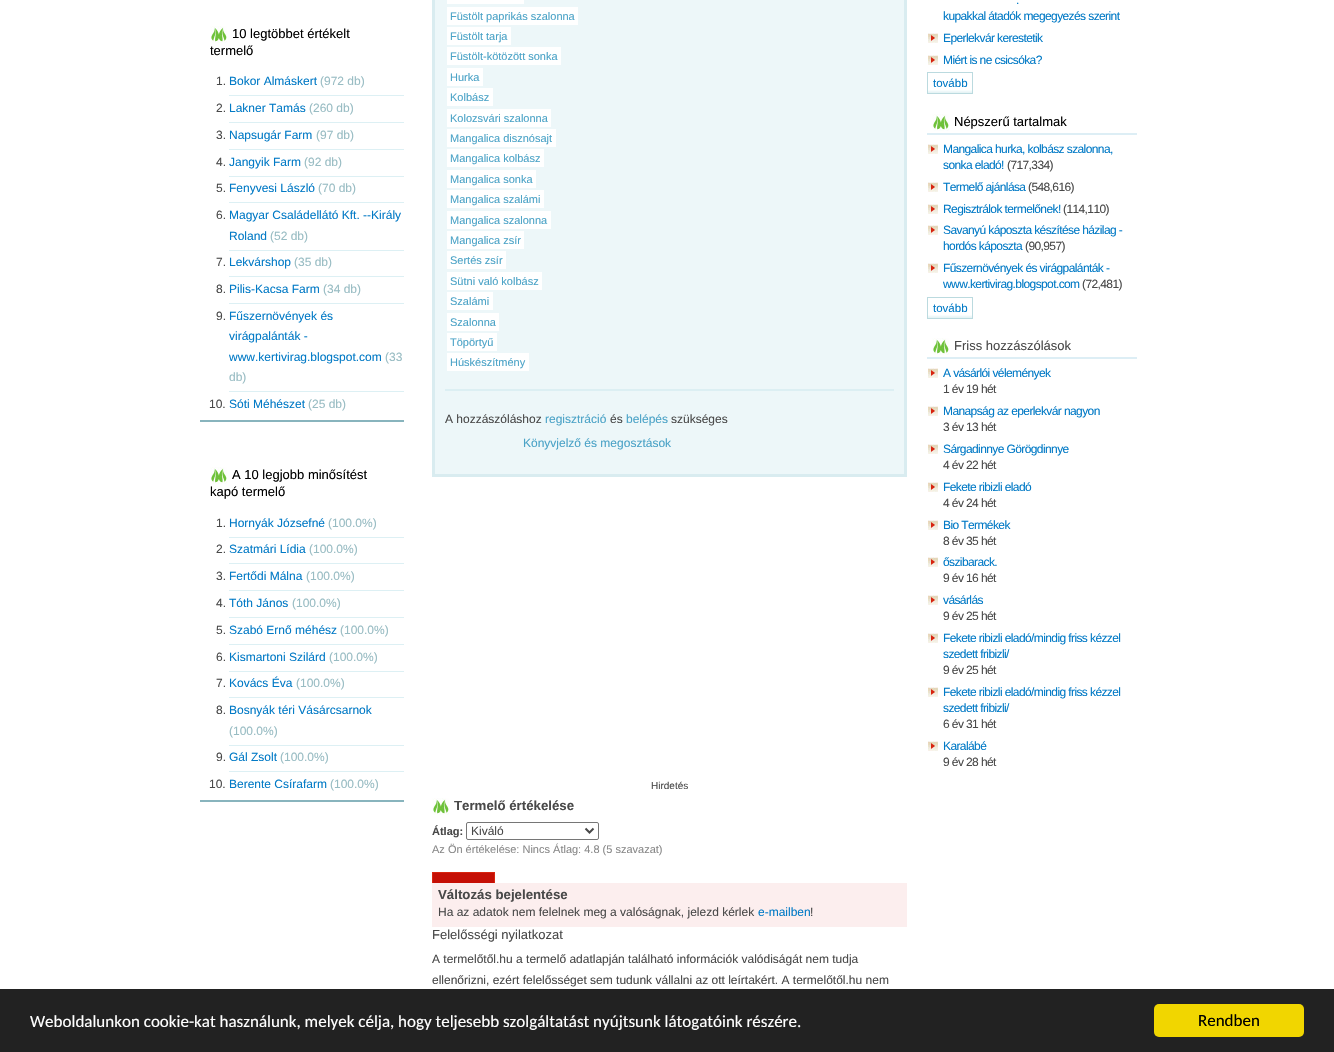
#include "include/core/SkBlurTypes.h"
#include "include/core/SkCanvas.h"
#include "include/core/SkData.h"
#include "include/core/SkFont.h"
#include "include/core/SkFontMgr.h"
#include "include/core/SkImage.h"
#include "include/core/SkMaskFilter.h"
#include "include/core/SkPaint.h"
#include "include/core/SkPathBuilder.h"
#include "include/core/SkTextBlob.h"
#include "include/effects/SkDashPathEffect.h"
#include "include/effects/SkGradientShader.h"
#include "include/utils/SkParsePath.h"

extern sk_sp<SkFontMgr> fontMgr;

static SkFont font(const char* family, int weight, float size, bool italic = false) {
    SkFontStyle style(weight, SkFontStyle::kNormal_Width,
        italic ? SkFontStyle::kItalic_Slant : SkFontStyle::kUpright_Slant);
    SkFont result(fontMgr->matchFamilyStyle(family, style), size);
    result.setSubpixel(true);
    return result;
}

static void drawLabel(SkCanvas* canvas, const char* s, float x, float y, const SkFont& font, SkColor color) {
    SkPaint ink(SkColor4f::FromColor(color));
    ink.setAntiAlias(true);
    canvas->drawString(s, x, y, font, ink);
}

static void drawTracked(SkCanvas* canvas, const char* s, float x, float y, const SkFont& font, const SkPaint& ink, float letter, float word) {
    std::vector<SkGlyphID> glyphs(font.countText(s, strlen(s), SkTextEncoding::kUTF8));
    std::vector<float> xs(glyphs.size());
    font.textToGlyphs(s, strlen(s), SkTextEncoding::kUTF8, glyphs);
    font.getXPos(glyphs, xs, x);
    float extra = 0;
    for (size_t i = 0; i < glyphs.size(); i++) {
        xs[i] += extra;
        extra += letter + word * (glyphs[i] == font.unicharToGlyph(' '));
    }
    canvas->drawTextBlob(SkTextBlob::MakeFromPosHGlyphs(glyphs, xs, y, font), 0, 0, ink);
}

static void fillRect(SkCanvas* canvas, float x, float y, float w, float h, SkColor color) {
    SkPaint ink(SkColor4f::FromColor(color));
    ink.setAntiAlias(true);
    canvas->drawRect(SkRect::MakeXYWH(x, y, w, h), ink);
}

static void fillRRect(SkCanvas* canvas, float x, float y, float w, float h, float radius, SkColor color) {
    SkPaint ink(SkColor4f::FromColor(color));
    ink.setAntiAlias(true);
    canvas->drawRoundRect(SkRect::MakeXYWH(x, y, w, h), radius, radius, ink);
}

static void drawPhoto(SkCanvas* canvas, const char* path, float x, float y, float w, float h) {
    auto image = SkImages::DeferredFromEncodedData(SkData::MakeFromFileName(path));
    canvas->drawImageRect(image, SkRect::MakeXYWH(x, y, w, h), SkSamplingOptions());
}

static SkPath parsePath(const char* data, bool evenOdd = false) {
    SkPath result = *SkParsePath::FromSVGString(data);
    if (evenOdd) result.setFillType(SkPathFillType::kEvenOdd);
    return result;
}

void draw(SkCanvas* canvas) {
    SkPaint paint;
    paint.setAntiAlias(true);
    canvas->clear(0xFFFFFFFF);
    drawPhoto(canvas, "assets/img1.png", 210, 26, 17, 17);
    SkFont font1 = font("Liberation Sans", 400, 13);
    drawLabel(canvas, "10 legtöbbet értékelt", 232, 38, font1, 0xFF000000);
    drawLabel(canvas, "termelő", 210, 55, font1, 0xFF000000);
    fillRect(canvas, 200, 420, 204, 2, 0xFF88B4BD);
    fillRect(canvas, 229, 95, 175, 1, 0xFFDDF0F4);
    SkFont font2 = font("Liberation Sans", 400, 12);
    drawLabel(canvas, "1.", 216, 85, font2, 0xFF494949);
    drawLabel(canvas, "Bokor Almáskert", 229, 85, font2, 0xFF027AC6);
    drawLabel(canvas, "(972 db)", 320, 85, font2, 0xFF98BCC3);
    fillRect(canvas, 229, 122, 175, 1, 0xFFDDF0F4);
    drawLabel(canvas, "2.", 216, 112, font2, 0xFF494949);
    drawLabel(canvas, "Lakner Tamás", 229, 112, font2, 0xFF027AC6);
    drawLabel(canvas, "(260 db)", 309, 112, font2, 0xFF98BCC3);
    fillRect(canvas, 229, 149, 175, 1, 0xFFDDF0F4);
    drawLabel(canvas, "3.", 216, 139, font2, 0xFF494949);
    drawLabel(canvas, "Napsugár Farm", 229, 139, font2, 0xFF027AC6);
    drawLabel(canvas, "(97 db)", 316, 139, font2, 0xFF98BCC3);
    fillRect(canvas, 229, 176, 175, 1, 0xFFDDF0F4);
    drawLabel(canvas, "4.", 216, 166, font2, 0xFF494949);
    drawLabel(canvas, "Jangyik Farm", 229, 166, font2, 0xFF027AC6);
    drawLabel(canvas, "(92 db)", 304, 166, font2, 0xFF98BCC3);
    fillRect(canvas, 229, 202, 175, 1, 0xFFDDF0F4);
    drawLabel(canvas, "5.", 216, 192, font2, 0xFF494949);
    drawLabel(canvas, "Fenyvesi László", 229, 192, font2, 0xFF027AC6);
    drawLabel(canvas, "(70 db)", 318, 192, font2, 0xFF98BCC3);
    fillRect(canvas, 229, 250, 175, 1, 0xFFDDF0F4);
    drawLabel(canvas, "6.", 216, 219, font2, 0xFF494949);
    drawLabel(canvas, "Magyar Családellátó Kft. --Király", 229, 219, font2, 0xFF027AC6);
    drawLabel(canvas, "Roland", 229, 240, font2, 0xFF027AC6);
    drawLabel(canvas, "(52 db)", 270, 240, font2, 0xFF98BCC3);
    fillRect(canvas, 229, 276, 175, 1, 0xFFDDF0F4);
    drawLabel(canvas, "7.", 216, 266, font2, 0xFF494949);
    drawLabel(canvas, "Lekvárshop", 229, 266, font2, 0xFF027AC6);
    drawLabel(canvas, "(35 db)", 294, 266, font2, 0xFF98BCC3);
    fillRect(canvas, 229, 303, 175, 1, 0xFFDDF0F4);
    drawLabel(canvas, "8.", 216, 293, font2, 0xFF494949);
    drawLabel(canvas, "Pilis-Kacsa Farm", 229, 293, font2, 0xFF027AC6);
    drawLabel(canvas, "(34 db)", 323, 293, font2, 0xFF98BCC3);
    fillRect(canvas, 229, 391, 175, 1, 0xFFDDF0F4);
    drawLabel(canvas, "9.", 216, 320, font2, 0xFF494949);
    drawLabel(canvas, "Fűszernövények és", 229, 320, font2, 0xFF027AC6);
    drawLabel(canvas, "virágpalánták -", 229, 340, font2, 0xFF027AC6);
    drawLabel(canvas, "www.kertivirag.blogspot.com", 229, 361, font2, 0xFF027AC6);
    drawLabel(canvas, "(33", 385, 361, font2, 0xFF98BCC3);
    drawLabel(canvas, "db)", 229, 381, font2, 0xFF98BCC3);
    drawLabel(canvas, "10.", 209, 408, font2, 0xFF494949);
    drawLabel(canvas, "Sóti Méhészet", 229, 408, font2, 0xFF027AC6);
    drawLabel(canvas, "(25 db)", 308, 408, font2, 0xFF98BCC3);
    drawPhoto(canvas, "assets/img1.png", 210, 467, 17, 17);
    drawLabel(canvas, "A 10 legjobb minősítést", 232, 479, font1, 0xFF000000);
    drawLabel(canvas, "kapó termelő", 210, 496, font1, 0xFF000000);
    fillRect(canvas, 200, 800, 204, 2, 0xFF88B4BD);
    fillRect(canvas, 229, 537, 175, 1, 0xFFDDF0F4);
    drawLabel(canvas, "1.", 216, 527, font2, 0xFF494949);
    drawLabel(canvas, "Hornyák Józsefné", 229, 527, font2, 0xFF027AC6);
    drawLabel(canvas, "(100.0%)", 328, 527, font2, 0xFF98BCC3);
    fillRect(canvas, 229, 563, 175, 1, 0xFFDDF0F4);
    drawLabel(canvas, "2.", 216, 553, font2, 0xFF494949);
    drawLabel(canvas, "Szatmári Lídia", 229, 553, font2, 0xFF027AC6);
    drawLabel(canvas, "(100.0%)", 309, 553, font2, 0xFF98BCC3);
    fillRect(canvas, 229, 590, 175, 1, 0xFFDDF0F4);
    drawLabel(canvas, "3.", 216, 580, font2, 0xFF494949);
    drawLabel(canvas, "Fertődi Málna", 229, 580, font2, 0xFF027AC6);
    drawLabel(canvas, "(100.0%)", 306, 580, font2, 0xFF98BCC3);
    fillRect(canvas, 229, 617, 175, 1, 0xFFDDF0F4);
    drawLabel(canvas, "4.", 216, 607, font2, 0xFF494949);
    drawLabel(canvas, "Tóth János", 229, 607, font2, 0xFF027AC6);
    drawLabel(canvas, "(100.0%)", 292, 607, font2, 0xFF98BCC3);
    fillRect(canvas, 229, 644, 175, 1, 0xFFDDF0F4);
    drawLabel(canvas, "5.", 216, 634, font2, 0xFF494949);
    drawLabel(canvas, "Szabó Ernő méhész", 229, 634, font2, 0xFF027AC6);
    drawLabel(canvas, "(100.0%)", 340, 634, font2, 0xFF98BCC3);
    fillRect(canvas, 229, 671, 175, 1, 0xFFDDF0F4);
    drawLabel(canvas, "6.", 216, 661, font2, 0xFF494949);
    drawLabel(canvas, "Kismartoni Szilárd", 229, 661, font2, 0xFF027AC6);
    drawLabel(canvas, "(100.0%)", 329, 661, font2, 0xFF98BCC3);
    fillRect(canvas, 229, 697, 175, 1, 0xFFDDF0F4);
    drawLabel(canvas, "7.", 216, 687, font2, 0xFF494949);
    drawLabel(canvas, "Kovács Éva", 229, 687, font2, 0xFF027AC6);
    drawLabel(canvas, "(100.0%)", 296, 687, font2, 0xFF98BCC3);
    fillRect(canvas, 229, 745, 175, 1, 0xFFDDF0F4);
    drawLabel(canvas, "8.", 216, 714, font2, 0xFF494949);
    drawLabel(canvas, "Bosnyák téri Vásárcsarnok", 229, 714, font2, 0xFF027AC6);
    drawLabel(canvas, "(100.0%)", 229, 735, font2, 0xFF98BCC3);
    fillRect(canvas, 229, 771, 175, 1, 0xFFDDF0F4);
    drawLabel(canvas, "9.", 216, 761, font2, 0xFF494949);
    drawLabel(canvas, "Gál Zsolt", 229, 761, font2, 0xFF027AC6);
    drawLabel(canvas, "(100.0%)", 280, 761, font2, 0xFF98BCC3);
    drawLabel(canvas, "10.", 209, 788, font2, 0xFF494949);
    drawLabel(canvas, "Berente Csírafarm", 229, 788, font2, 0xFF027AC6);
    drawLabel(canvas, "(100.0%)", 330, 788, font2, 0xFF98BCC3);
    paint.setColor(0xFFEDF7F9);
    canvas->drawRect(SkRect::MakeXYWH(433.5f, -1.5f, 472, 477), paint);
    paint.setStroke(true);
    paint.setStrokeWidth(3);
    paint.setColor(0xFFD9ECF0);
    canvas->drawRect(SkRect::MakeXYWH(433.5f, -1.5f, 472, 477), paint);
    fillRect(canvas, 445, 389, 449, 2, 0xFFDCEFF3);
    fillRect(canvas, 447, 0, 77, 4, 0xFFFFFFFF);
    fillRect(canvas, 447, 7, 131, 18, 0xFFFFFFFF);
    SkFont font3 = font("Liberation Sans", 400, 11);
    drawLabel(canvas, "Füstölt paprikás szalonna", 450, 20, font3, 0xFF4BA3C7);
    fillRect(canvas, 447, 27, 64, 18, 0xFFFFFFFF);
    drawLabel(canvas, "Füstölt tarja", 450, 40, font3, 0xFF4BA3C7);
    fillRect(canvas, 447, 47, 114, 18, 0xFFFFFFFF);
    drawLabel(canvas, "Füstölt-kötözött sonka", 450, 60, font3, 0xFF4BA3C7);
    fillRect(canvas, 447, 68, 36, 18, 0xFFFFFFFF);
    drawLabel(canvas, "Hurka", 450, 81, font3, 0xFF4BA3C7);
    fillRect(canvas, 447, 88, 46, 18, 0xFFFFFFFF);
    drawLabel(canvas, "Kolbász", 450, 101, font3, 0xFF4BA3C7);
    fillRect(canvas, 447, 109, 104, 18, 0xFFFFFFFF);
    drawLabel(canvas, "Kolozsvári szalonna", 450, 122, font3, 0xFF4BA3C7);
    fillRect(canvas, 447, 129, 109, 18, 0xFFFFFFFF);
    drawLabel(canvas, "Mangalica disznósajt", 450, 142, font3, 0xFF4BA3C7);
    fillRect(canvas, 447, 149, 97, 18, 0xFFFFFFFF);
    drawLabel(canvas, "Mangalica kolbász", 450, 162, font3, 0xFF4BA3C7);
    fillRect(canvas, 447, 170, 89, 18, 0xFFFFFFFF);
    drawLabel(canvas, "Mangalica sonka", 450, 183, font3, 0xFF4BA3C7);
    fillRect(canvas, 447, 190, 97, 18, 0xFFFFFFFF);
    drawLabel(canvas, "Mangalica szalámi", 450, 203, font3, 0xFF4BA3C7);
    fillRect(canvas, 447, 211, 104, 18, 0xFFFFFFFF);
    drawLabel(canvas, "Mangalica szalonna", 450, 224, font3, 0xFF4BA3C7);
    fillRect(canvas, 447, 231, 77, 18, 0xFFFFFFFF);
    drawLabel(canvas, "Mangalica zsír", 450, 244, font3, 0xFF4BA3C7);
    fillRect(canvas, 447, 251, 59, 18, 0xFFFFFFFF);
    drawLabel(canvas, "Sertés zsír", 450, 264, font3, 0xFF4BA3C7);
    fillRect(canvas, 447, 272, 95, 18, 0xFFFFFFFF);
    drawLabel(canvas, "Sütni való kolbász", 450, 285, font3, 0xFF4BA3C7);
    fillRect(canvas, 447, 292, 46, 18, 0xFFFFFFFF);
    drawLabel(canvas, "Szalámi", 450, 305, font3, 0xFF4BA3C7);
    fillRect(canvas, 447, 313, 52, 18, 0xFFFFFFFF);
    drawLabel(canvas, "Szalonna", 450, 326, font3, 0xFF4BA3C7);
    fillRect(canvas, 447, 333, 50, 18, 0xFFFFFFFF);
    drawLabel(canvas, "Töpörtyű", 450, 346, font3, 0xFF4BA3C7);
    fillRect(canvas, 447, 353, 82, 18, 0xFFFFFFFF);
    drawLabel(canvas, "Húskészítmény", 450, 366, font3, 0xFF4BA3C7);
    drawLabel(canvas, "A hozzászóláshoz", 445, 423, font2, 0xFF494949);
    drawLabel(canvas, "regisztráció", 545, 423, font2, 0xFF4BA3C7);
    drawLabel(canvas, "és", 610, 423, font2, 0xFF494949);
    drawLabel(canvas, "belépés", 626, 423, font2, 0xFF4BA3C7);
    drawLabel(canvas, "szükséges", 671, 423, font2, 0xFF494949);
    drawLabel(canvas, "Könyvjelző és megosztások", 523, 447, font2, 0xFF4BA3C7);
    SkFont font4 = font("Liberation Sans", 400, 10);
    drawLabel(canvas, "Hirdetés", 651, 789, font4, 0xFF494949);
    drawPhoto(canvas, "assets/img1.png", 432, 798, 17, 17);
    SkFont font5 = font("Liberation Sans", 700, 13.25f);
    drawLabel(canvas, "Termelő értékelése", 454, 810, font5, 0xFF494949);
    SkFont font6 = font("Liberation Sans", 700, 11);
    drawLabel(canvas, "Átlag:", 432, 835, font6, 0xFF494949);
    paint.setStrokeWidth(1);
    paint.setColor(0xFF767676);
    canvas->drawRoundRect(SkRect::MakeXYWH(466.5f, 822.5f, 132, 17), 1.5f, 1.5f, paint);
    paint.setStrokeWidth(2);
    paint.setColor(0xFF494949);
    canvas->drawPath(parsePath("M585.5 828.5L589.5 832.5L593.5 828.5"), paint);
    drawLabel(canvas, "Kiváló", 471, 835, font2, 0xFF494949);
    drawLabel(canvas, "Az Ön értékelése: Nincs Átlag: 4.8 (5 szavazat)", 432, 853, font3, 0xFF898989);
    fillRect(canvas, 433, 873, 61, 10, 0xFFC50F05);
    paint.setStrokeWidth(1);
    paint.setColor(0xFFD8250F);
    canvas->drawRect(SkRect::MakeXYWH(432.5f, 872.5f, 62, 21), paint);
    fillRect(canvas, 432, 883, 475, 44, 0xFFFCEEEE);
    drawLabel(canvas, "Változás bejelentése", 438, 899, font5, 0xFF494949);
    drawLabel(canvas, "Ha az adatok nem felelnek meg a valóságnak, jelezd kérlek", 438, 916, font2, 0xFF494949);
    drawLabel(canvas, "e-mailben", 758, 916, font2, 0xFF027AC6);
    drawLabel(canvas, "!", 810, 916, font2, 0xFF494949);
    drawLabel(canvas, "Felelősségi nyilatkozat", 432, 939, font1, 0xFF494949);
    drawLabel(canvas, "A termelőtől.hu a termelő adatlapján található információk valódiságát nem tudja", 432, 963, font2, 0xFF494949);
    drawLabel(canvas, "ellenőrizni, ezért felelősséget sem tudunk vállalni az ott leírtakért. A termelőtől.hu nem", 432, 984, font2, 0xFF494949);
    paint.setStroke(false);
    paint.setColor(0xFF027AC6);
    drawTracked(canvas, ".", 1016, 4, font2, paint, -0.6f, 0);
    drawTracked(canvas, "kupakkal átadók megegyezés szerint", 943, 20, font2, paint, -0.6f, 0);
    drawPhoto(canvas, "assets/img2.png", 928, 33, 10, 10);
    drawTracked(canvas, "Eperlekvár kerestetik", 943, 42, font2, paint, -0.6f, 0);
    drawPhoto(canvas, "assets/img2.png", 928, 55, 10, 10);
    drawTracked(canvas, "Miért is ne csicsóka?", 943, 64, font2, paint, -0.6f, 0);
    drawPhoto(canvas, "assets/img3.png", 928, 90, 44, 3);
    paint.setStroke(true);
    paint.setColor(0xFFBBDADF);
    canvas->drawRect(SkRect::MakeXYWH(927.5f, 72.5f, 45, 21), paint);
    SkFont font7 = font("Liberation Sans", 400, 11.5f);
    drawLabel(canvas, "tovább", 933, 87, font7, 0xFF027AC6);
    fillRect(canvas, 927, 133, 210, 2, 0xFFDDEEF5);
    drawPhoto(canvas, "assets/img1.png", 932, 114, 17, 17);
    drawLabel(canvas, "Népszerű tartalmak", 954, 126, font1, 0xFF000000);
    drawPhoto(canvas, "assets/img2.png", 928, 144, 10, 10);
    paint.setStroke(false);
    paint.setColor(0xFF027AC6);
    drawTracked(canvas, "Mangalica hurka, kolbász szalonna,", 943, 153, font2, paint, -0.6f, 0);
    drawTracked(canvas, "sonka eladó!", 943, 169, font2, paint, -0.6f, 0);
    paint.setColor(0xFF494949);
    drawTracked(canvas, "(717,334)", 1007, 169, font2, paint, -0.6f, 0);
    drawPhoto(canvas, "assets/img2.png", 928, 182, 10, 10);
    paint.setColor(0xFF027AC6);
    drawTracked(canvas, "Termelő ajánlása", 943, 191, font2, paint, -0.6f, 0);
    paint.setColor(0xFF494949);
    drawTracked(canvas, "(548,616)", 1028, 191, font2, paint, -0.6f, 0);
    drawPhoto(canvas, "assets/img2.png", 928, 204, 10, 10);
    paint.setColor(0xFF027AC6);
    drawTracked(canvas, "Regisztrálok termelőnek!", 943, 213, font2, paint, -0.6f, 0);
    paint.setColor(0xFF494949);
    drawTracked(canvas, "(114,110)", 1063, 213, font2, paint, -0.6f, 0);
    drawPhoto(canvas, "assets/img2.png", 928, 225, 10, 10);
    paint.setColor(0xFF027AC6);
    drawTracked(canvas, "Savanyú káposzta készítése házilag -", 943, 234, font2, paint, -0.6f, 0);
    drawTracked(canvas, "hordós káposzta", 943, 250, font2, paint, -0.6f, 0);
    paint.setColor(0xFF494949);
    drawTracked(canvas, "(90,957)", 1025, 250, font2, paint, -0.6f, 0);
    drawPhoto(canvas, "assets/img2.png", 928, 263, 10, 10);
    paint.setColor(0xFF027AC6);
    drawTracked(canvas, "Fűszernövények és virágpalánták -", 943, 272, font2, paint, -0.6f, 0);
    drawTracked(canvas, "www.kertivirag.blogspot.com", 943, 288, font2, paint, -0.6f, 0);
    paint.setColor(0xFF494949);
    drawTracked(canvas, "(72,481)", 1082, 288, font2, paint, -0.6f, 0);
    drawPhoto(canvas, "assets/img3.png", 928, 315, 44, 3);
    paint.setStroke(true);
    paint.setColor(0xFFBBDADF);
    canvas->drawRect(SkRect::MakeXYWH(927.5f, 297.5f, 45, 21), paint);
    drawLabel(canvas, "tovább", 933, 312, font7, 0xFF027AC6);
    fillRect(canvas, 927, 357, 210, 2, 0xFFDDEEF5);
    drawPhoto(canvas, "assets/img1.png", 932, 338, 17, 17);
    drawLabel(canvas, "Friss hozzászólások", 954, 350, font1, 0xFF494949);
    drawPhoto(canvas, "assets/img2.png", 928, 368, 10, 10);
    paint.setStroke(false);
    paint.setColor(0xFF027AC6);
    drawTracked(canvas, "A vásárlói vélemények", 943, 377, font2, paint, -0.6f, 0);
    paint.setColor(0xFF494949);
    drawTracked(canvas, "1 év 19 hét", 943, 393, font2, paint, -0.6f, 0);
    drawPhoto(canvas, "assets/img2.png", 928, 406, 10, 10);
    paint.setColor(0xFF027AC6);
    drawTracked(canvas, "Manapság az eperlekvár nagyon", 943, 415, font2, paint, -0.6f, 0);
    paint.setColor(0xFF494949);
    drawTracked(canvas, "3 év 13 hét", 943, 431, font2, paint, -0.6f, 0);
    drawPhoto(canvas, "assets/img2.png", 928, 444, 10, 10);
    paint.setColor(0xFF027AC6);
    drawTracked(canvas, "Sárgadinnye Görögdinnye", 943, 453, font2, paint, -0.6f, 0);
    paint.setColor(0xFF494949);
    drawTracked(canvas, "4 év 22 hét", 943, 469, font2, paint, -0.6f, 0);
    drawPhoto(canvas, "assets/img2.png", 928, 482, 10, 10);
    paint.setColor(0xFF027AC6);
    drawTracked(canvas, "Fekete ribizli eladó", 943, 491, font2, paint, -0.6f, 0);
    paint.setColor(0xFF494949);
    drawTracked(canvas, "4 év 24 hét", 943, 507, font2, paint, -0.6f, 0);
    drawPhoto(canvas, "assets/img2.png", 928, 520, 10, 10);
    paint.setColor(0xFF027AC6);
    drawTracked(canvas, "Bio Termékek", 943, 529, font2, paint, -0.6f, 0);
    paint.setColor(0xFF494949);
    drawTracked(canvas, "8 év 35 hét", 943, 545, font2, paint, -0.6f, 0);
    drawPhoto(canvas, "assets/img2.png", 928, 557, 10, 10);
    paint.setColor(0xFF027AC6);
    drawTracked(canvas, "őszibarack.", 943, 566, font2, paint, -0.6f, 0);
    paint.setColor(0xFF494949);
    drawTracked(canvas, "9 év 16 hét", 943, 582, font2, paint, -0.6f, 0);
    drawPhoto(canvas, "assets/img2.png", 928, 595, 10, 10);
    paint.setColor(0xFF027AC6);
    drawTracked(canvas, "vásárlás", 943, 604, font2, paint, -0.6f, 0);
    paint.setColor(0xFF494949);
    drawTracked(canvas, "9 év 25 hét", 943, 620, font2, paint, -0.6f, 0);
    drawPhoto(canvas, "assets/img2.png", 928, 633, 10, 10);
    paint.setColor(0xFF027AC6);
    drawTracked(canvas, "Fekete ribizli eladó/mindig friss kézzel", 943, 642, font2, paint, -0.6f, 0);
    drawTracked(canvas, "szedett fribizli/", 943, 658, font2, paint, -0.6f, 0);
    paint.setColor(0xFF494949);
    drawTracked(canvas, "9 év 25 hét", 943, 674, font2, paint, -0.6f, 0);
    drawPhoto(canvas, "assets/img2.png", 928, 687, 10, 10);
    paint.setColor(0xFF027AC6);
    drawTracked(canvas, "Fekete ribizli eladó/mindig friss kézzel", 943, 696, font2, paint, -0.6f, 0);
    drawTracked(canvas, "szedett fribizli/", 943, 712, font2, paint, -0.6f, 0);
    paint.setColor(0xFF494949);
    drawTracked(canvas, "6 év 31 hét", 943, 728, font2, paint, -0.6f, 0);
    drawPhoto(canvas, "assets/img2.png", 928, 741, 10, 10);
    paint.setColor(0xFF027AC6);
    drawTracked(canvas, "Karalábé", 943, 750, font2, paint, -0.6f, 0);
    paint.setColor(0xFF494949);
    drawTracked(canvas, "9 év 28 hét", 943, 766, font2, paint, -0.6f, 0);
    fillRect(canvas, 0, 989, 1334, 63, 0xFF222222);
    SkFont font8 = font("Carlito", 400, 17);
    drawLabel(canvas, "Weboldalunkon cookie-kat használunk, melyek célja, hogy teljesebb szolgáltatást nyújtsunk látogatóink részére.", 30, 1027, font8, 0xFFFFFFFF);
    fillRRect(canvas, 1154, 1004, 150, 33, 5, 0xFFF1D600);
    drawLabel(canvas, "Rendben", 1198, 1026, font8, 0xFF000000);
}
